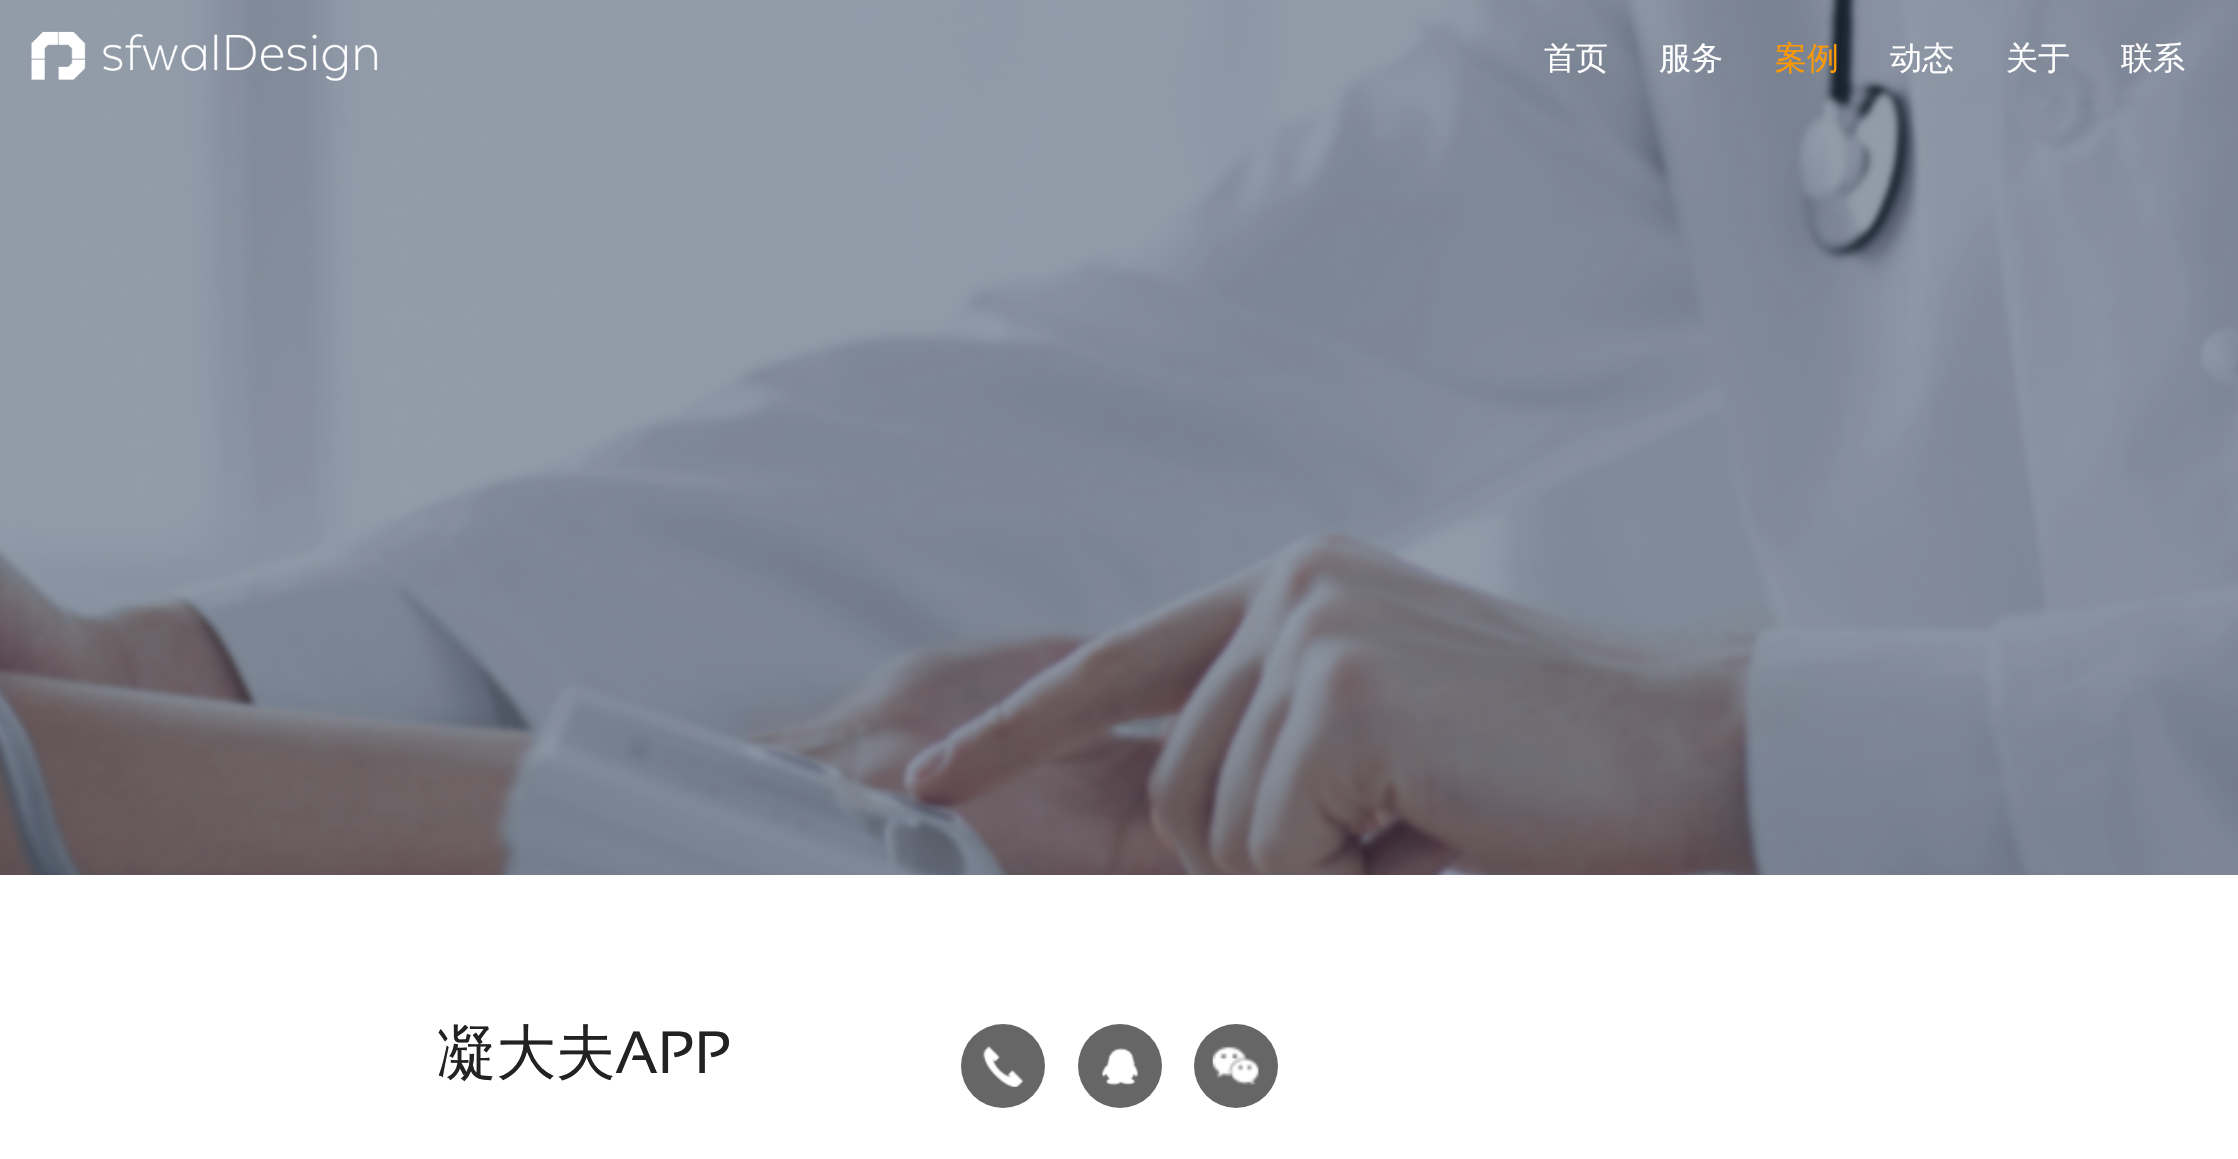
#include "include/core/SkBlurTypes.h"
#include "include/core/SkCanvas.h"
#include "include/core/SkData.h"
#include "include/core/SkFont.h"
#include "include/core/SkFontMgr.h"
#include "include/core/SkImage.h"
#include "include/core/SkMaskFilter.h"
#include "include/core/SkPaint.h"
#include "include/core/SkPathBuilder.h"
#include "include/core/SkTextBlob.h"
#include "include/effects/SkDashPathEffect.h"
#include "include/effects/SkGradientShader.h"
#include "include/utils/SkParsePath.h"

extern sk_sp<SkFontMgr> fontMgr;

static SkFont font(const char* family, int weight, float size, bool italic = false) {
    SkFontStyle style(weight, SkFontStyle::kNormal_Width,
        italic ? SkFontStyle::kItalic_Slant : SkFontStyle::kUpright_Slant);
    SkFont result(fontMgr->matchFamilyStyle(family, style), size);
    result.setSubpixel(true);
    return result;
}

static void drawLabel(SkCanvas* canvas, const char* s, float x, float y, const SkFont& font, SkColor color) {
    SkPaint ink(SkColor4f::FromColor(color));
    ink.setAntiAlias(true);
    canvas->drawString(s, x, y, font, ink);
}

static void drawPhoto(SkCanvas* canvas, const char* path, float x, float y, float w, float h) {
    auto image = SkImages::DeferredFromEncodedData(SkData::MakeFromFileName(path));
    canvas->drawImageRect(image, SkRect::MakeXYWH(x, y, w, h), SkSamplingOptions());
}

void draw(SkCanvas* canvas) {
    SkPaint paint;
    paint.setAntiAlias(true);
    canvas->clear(0xFFFFFFFF);
    drawPhoto(canvas, "assets/img1.png", 0, 0, 2238, 875);
    drawPhoto(canvas, "assets/img2.png", 31, 31, 347, 50);
    SkFont font1 = font("WenQuanYi Zen Hei", 500, 32);
    drawLabel(canvas, "首页", 1544, 69, font1, 0xFFFFFFFF);
    drawLabel(canvas, "服务", 1659, 69, font1, 0xFFFFFFFF);
    drawLabel(canvas, "案例", 1775, 69, font1, 0xFFFF9900);
    drawLabel(canvas, "动态", 1890, 69, font1, 0xFFFFFFFF);
    drawLabel(canvas, "关于", 2006, 69, font1, 0xFFFFFFFF);
    drawLabel(canvas, "联系", 2121, 69, font1, 0xFFFFFFFF);
    SkFont font2 = font("WenQuanYi Zen Hei", 500, 59.5f);
    drawLabel(canvas, "凝大夫", 437, 1073, font2, 0xFF222222);
    SkFont font3 = font("Sansation", 400, 59.5f);
    drawLabel(canvas, "APP", 615, 1073, font3, 0xFF222222);
    paint.setColor(0xFF666666);
    canvas->drawCircle(1003, 1066, 42, paint);
    drawPhoto(canvas, "assets/img3.png", 982, 1045, 42, 42);
    canvas->drawCircle(1120, 1066, 42, paint);
    drawPhoto(canvas, "assets/img4.png", 1101, 1047, 37, 39);
    canvas->drawCircle(1236, 1066, 42, paint);
    drawPhoto(canvas, "assets/img5.png", 1212, 1046, 47, 39);
}
